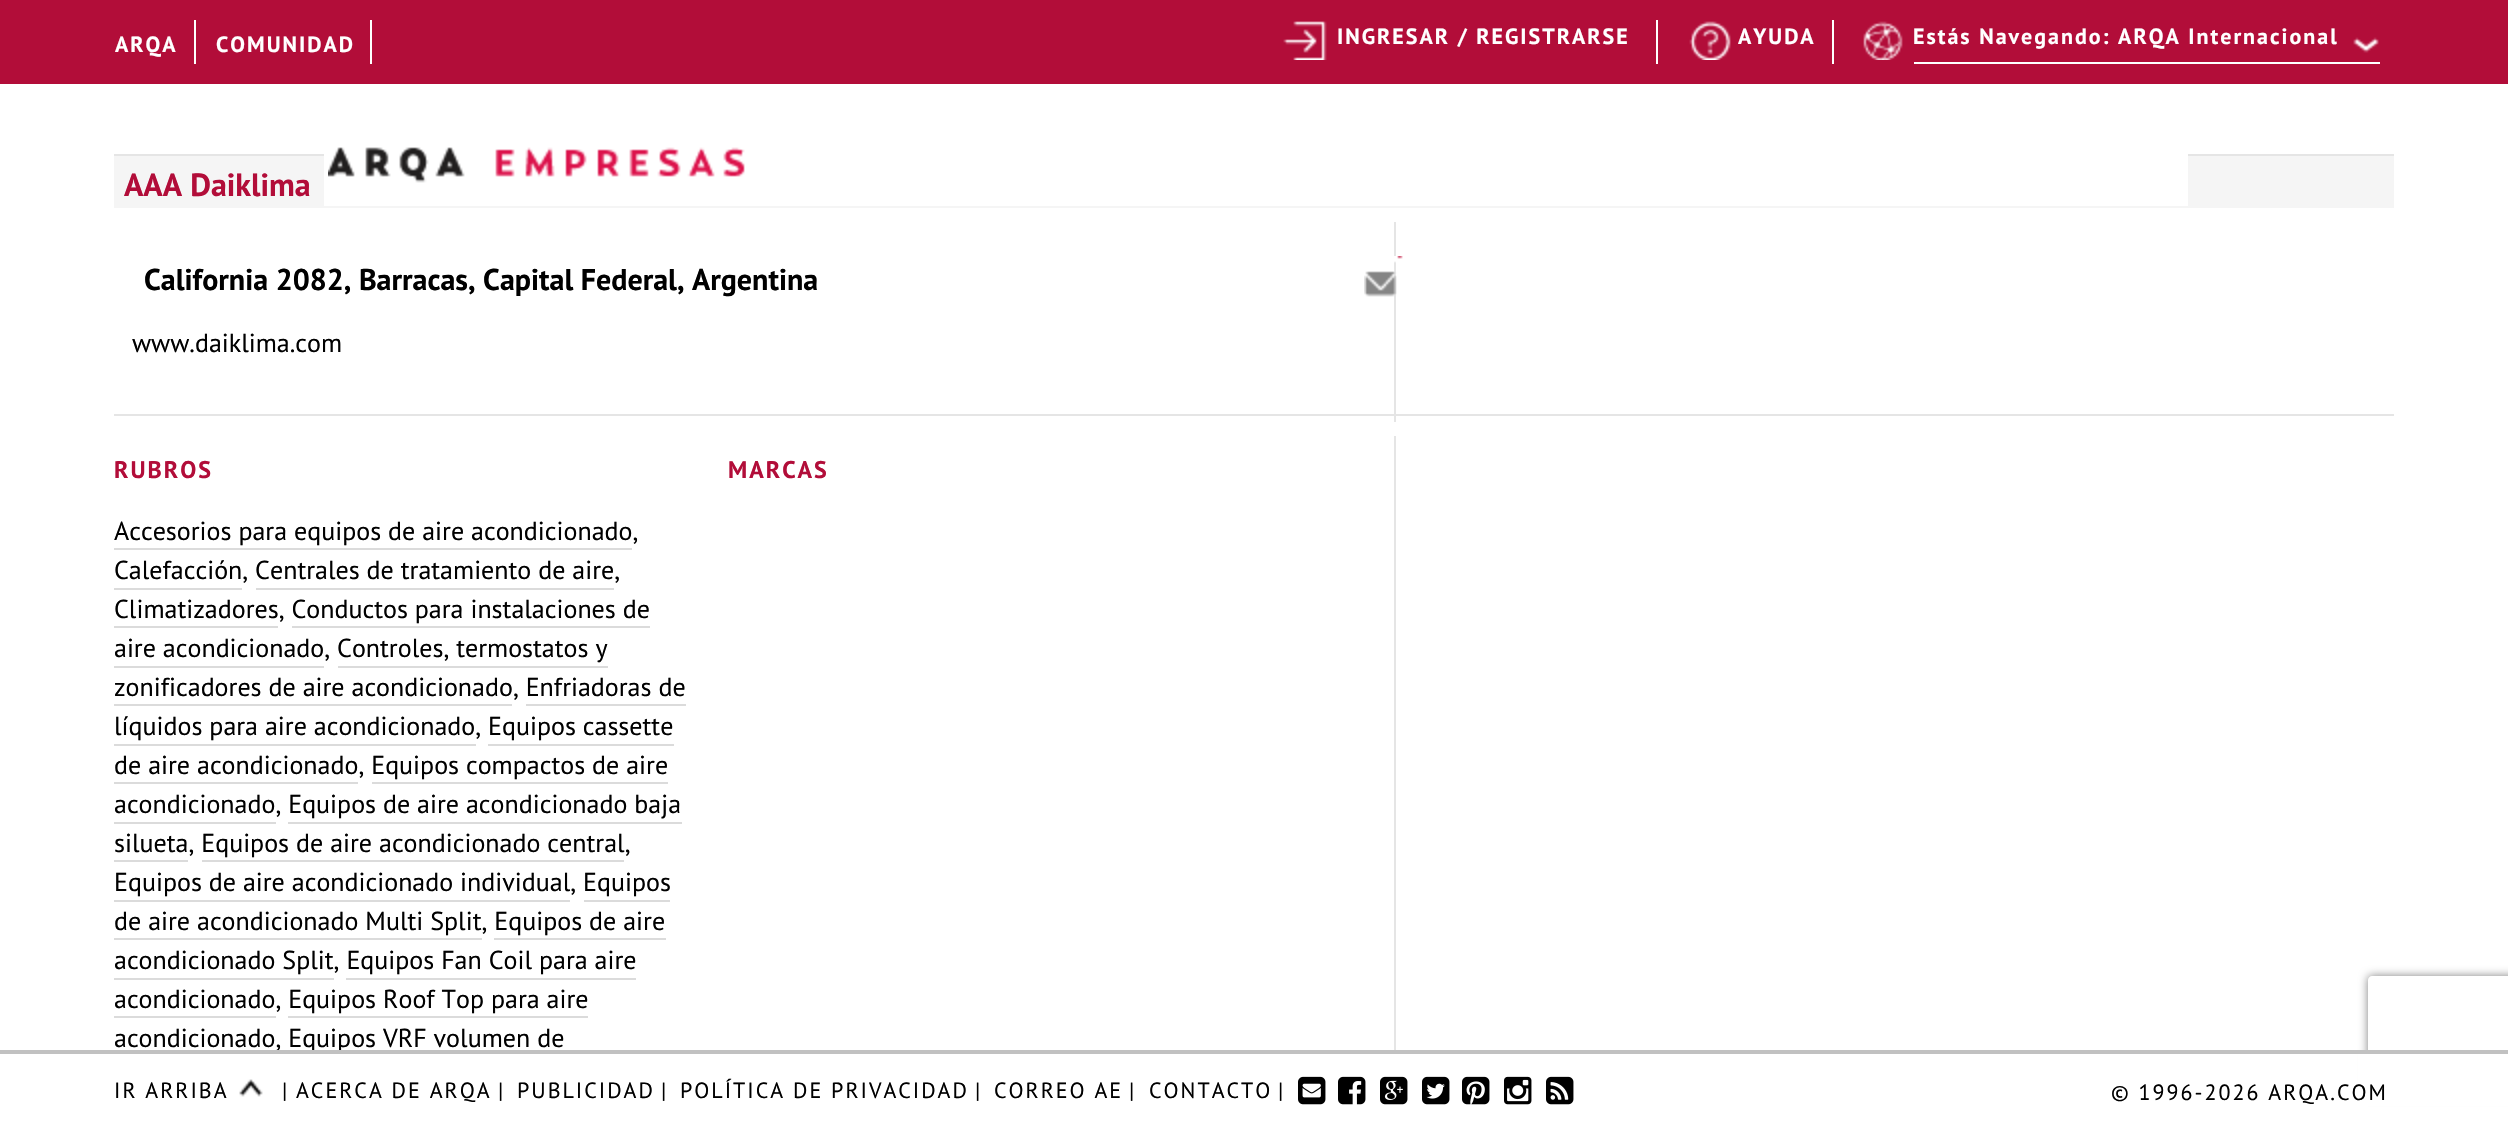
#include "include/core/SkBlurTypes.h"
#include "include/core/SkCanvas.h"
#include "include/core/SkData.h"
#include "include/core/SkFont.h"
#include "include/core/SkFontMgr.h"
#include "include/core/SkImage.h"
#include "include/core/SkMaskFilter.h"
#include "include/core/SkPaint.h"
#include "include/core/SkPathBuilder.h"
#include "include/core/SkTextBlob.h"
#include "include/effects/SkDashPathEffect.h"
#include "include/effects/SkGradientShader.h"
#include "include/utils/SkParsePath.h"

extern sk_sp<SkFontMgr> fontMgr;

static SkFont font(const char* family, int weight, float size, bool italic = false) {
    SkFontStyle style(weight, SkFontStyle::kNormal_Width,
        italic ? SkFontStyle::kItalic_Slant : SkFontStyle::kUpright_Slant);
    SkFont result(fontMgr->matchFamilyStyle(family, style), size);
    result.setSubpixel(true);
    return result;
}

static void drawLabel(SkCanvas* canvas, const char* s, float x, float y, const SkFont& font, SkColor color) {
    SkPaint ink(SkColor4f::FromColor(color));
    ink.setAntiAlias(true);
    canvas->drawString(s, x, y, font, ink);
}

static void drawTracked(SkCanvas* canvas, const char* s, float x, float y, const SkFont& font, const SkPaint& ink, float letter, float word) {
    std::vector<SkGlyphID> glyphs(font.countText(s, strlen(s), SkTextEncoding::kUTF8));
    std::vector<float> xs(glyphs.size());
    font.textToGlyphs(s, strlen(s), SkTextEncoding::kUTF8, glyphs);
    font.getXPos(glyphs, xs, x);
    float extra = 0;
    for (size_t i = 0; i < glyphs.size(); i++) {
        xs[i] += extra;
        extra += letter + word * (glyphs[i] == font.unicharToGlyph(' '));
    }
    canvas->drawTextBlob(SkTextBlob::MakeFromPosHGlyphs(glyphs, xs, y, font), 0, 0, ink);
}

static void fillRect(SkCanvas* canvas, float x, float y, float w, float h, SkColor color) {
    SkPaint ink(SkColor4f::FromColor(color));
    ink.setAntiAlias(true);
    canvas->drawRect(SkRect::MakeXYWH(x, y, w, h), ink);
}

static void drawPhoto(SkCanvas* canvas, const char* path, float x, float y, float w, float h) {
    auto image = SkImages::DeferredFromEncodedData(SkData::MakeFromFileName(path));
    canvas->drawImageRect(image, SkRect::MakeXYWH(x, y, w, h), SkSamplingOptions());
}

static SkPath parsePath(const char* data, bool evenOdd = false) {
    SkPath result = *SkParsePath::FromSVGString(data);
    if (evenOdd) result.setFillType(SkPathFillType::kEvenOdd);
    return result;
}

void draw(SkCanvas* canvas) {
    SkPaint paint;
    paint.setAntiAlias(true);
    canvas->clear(0xFFFFFFFF);
    fillRect(canvas, 0, 0, 2508, 84, 0xFFB20D39);
    fillRect(canvas, 194, 20, 2, 44, 0xFFFFFFFF);
    SkFont font1 = font("PT Sans", 700, 22);
    paint.setColor(0xFFFFFFFF);
    drawTracked(canvas, "ARQA", 115, 52, font1, paint, 2, 0);
    fillRect(canvas, 370, 20, 2, 44, 0xFFFFFFFF);
    drawTracked(canvas, "COMUNIDAD", 216, 52, font1, paint, 2, 0);
    fillRect(canvas, 1656, 20, 2, 44, 0xFFFFFFFF);
    drawPhoto(canvas, "assets/img1.png", 1283, 21, 44, 39);
    drawTracked(canvas, "INGRESAR / REGISTRARSE", 1337, 44, font1, paint, 2, 0);
    fillRect(canvas, 1832, 20, 2, 44, 0xFFFFFFFF);
    drawPhoto(canvas, "assets/img2.png", 1689, 21, 42, 39);
    drawTracked(canvas, "AYUDA", 1738, 44, font1, paint, 2, 0);
    drawPhoto(canvas, "assets/img3.png", 1863, 21, 40, 39);
    fillRect(canvas, 1914, 62, 466, 2, 0xFFFFFFFF);
    drawTracked(canvas, "Estás Navegando: ARQA Internacional", 1913, 44, font1, paint, 2, 0);
    drawPhoto(canvas, "assets/img4.png", 2353, 37, 26, 16);
    fillRect(canvas, 114, 156, 2280, 52, 0xFFF5F5F5);
    fillRect(canvas, 114, 154, 2280, 2, 0xFFE5E5E5);
    fillRect(canvas, 324, 154, 1864, 52, 0xFFFFFFFF);
    drawPhoto(canvas, "assets/img5.png", 328, 147, 417, 36);
    fillRect(canvas, 114, 414, 2280, 2, 0xFFE5E5E5);
    SkFont font2 = font("PT Sans", 700, 32);
    drawLabel(canvas, "AAA Daiklima", 124, 196, font2, 0xFFB20D39);
    fillRect(canvas, 1394, 222, 2, 200, 0xFFE5E5E5);
    SkFont font3 = font("PT Sans", 700, 30);
    drawLabel(canvas, "California 2082, Barracas, Capital Federal, Argentina", 144, 290, font3, 0xFF000000);
    drawPhoto(canvas, "assets/img6.png", 1364, 256, 39, 41);
    SkFont font4 = font("PT Sans", 400, 26);
    drawLabel(canvas, "www.daiklima.com", 132, 352, font4, 0xFF000000);
    fillRect(canvas, 1394, 436, 2, 614, 0xFFE5E5E5);
    SkFont font5 = font("PT Sans", 700, 24);
    paint.setColor(0xFFB20D39);
    drawTracked(canvas, "RUBROS", 114, 478, font5, paint, 2, 0);
    drawLabel(canvas, "Accesorios para equipos de aire acondicionado,", 114, 540, font4, 0xFF000000);
    fillRect(canvas, 114, 548, 518, 2, 0xFFDBDBDB);
    drawLabel(canvas, "Calefacción, Centrales de tratamiento de aire,", 114, 579, font4, 0xFF000000);
    fillRect(canvas, 114, 588, 128, 2, 0xFFDBDBDB);
    fillRect(canvas, 256, 588, 358, 2, 0xFFDBDBDB);
    drawLabel(canvas, "Climatizadores, Conductos para instalaciones de", 114, 618, font4, 0xFF000000);
    fillRect(canvas, 114, 626, 164, 2, 0xFFDBDBDB);
    drawLabel(canvas, "aire acondicionado, Controles, termostatos y", 114, 657, font4, 0xFF000000);
    fillRect(canvas, 292, 626, 358, 2, 0xFFDBDBDB);
    fillRect(canvas, 114, 666, 210, 2, 0xFFDBDBDB);
    drawLabel(canvas, "zonificadores de aire acondicionado, Enfriadoras de", 114, 696, font4, 0xFF000000);
    fillRect(canvas, 338, 666, 270, 2, 0xFFDBDBDB);
    fillRect(canvas, 114, 704, 398, 2, 0xFFDBDBDB);
    drawLabel(canvas, "líquidos para aire acondicionado, Equipos cassette", 114, 735, font4, 0xFF000000);
    fillRect(canvas, 526, 704, 160, 2, 0xFFDBDBDB);
    fillRect(canvas, 114, 744, 362, 2, 0xFFDBDBDB);
    drawLabel(canvas, "de aire acondicionado, Equipos compactos de aire", 114, 774, font4, 0xFF000000);
    fillRect(canvas, 488, 744, 186, 2, 0xFFDBDBDB);
    fillRect(canvas, 114, 782, 244, 2, 0xFFDBDBDB);
    drawLabel(canvas, "acondicionado, Equipos de aire acondicionado baja", 114, 813, font4, 0xFF000000);
    fillRect(canvas, 372, 782, 296, 2, 0xFFDBDBDB);
    fillRect(canvas, 114, 822, 162, 2, 0xFFDBDBDB);
    drawLabel(canvas, "silueta, Equipos de aire acondicionado central,", 114, 852, font4, 0xFF000000);
    fillRect(canvas, 288, 822, 394, 2, 0xFFDBDBDB);
    fillRect(canvas, 114, 860, 74, 2, 0xFFDBDBDB);
    fillRect(canvas, 202, 860, 422, 2, 0xFFDBDBDB);
    drawLabel(canvas, "Equipos de aire acondicionado individual, Equipos", 114, 891, font4, 0xFF000000);
    fillRect(canvas, 114, 900, 456, 2, 0xFFDBDBDB);
    drawLabel(canvas, "de aire acondicionado Multi Split, Equipos de aire", 114, 930, font4, 0xFF000000);
    fillRect(canvas, 584, 900, 86, 2, 0xFFDBDBDB);
    fillRect(canvas, 114, 938, 368, 2, 0xFFDBDBDB);
    drawLabel(canvas, "acondicionado Split, Equipos Fan Coil para aire", 114, 969, font4, 0xFF000000);
    fillRect(canvas, 494, 938, 172, 2, 0xFFDBDBDB);
    fillRect(canvas, 114, 978, 220, 2, 0xFFDBDBDB);
    drawLabel(canvas, "acondicionado, Equipos Roof Top para aire", 114, 1008, font4, 0xFF000000);
    fillRect(canvas, 346, 978, 290, 2, 0xFFDBDBDB);
    fillRect(canvas, 114, 1016, 162, 2, 0xFFDBDBDB);
    drawLabel(canvas, "acondicionado, Equipos VRF volumen de", 114, 1047, font4, 0xFF000000);
    fillRect(canvas, 288, 1016, 300, 2, 0xFFDBDBDB);
    drawTracked(canvas, "MARCAS", 728, 478, font5, paint, 2, 0);
    canvas->save();
    canvas->clipPath(parsePath("M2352 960H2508V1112H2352ZM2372 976H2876C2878 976 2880 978 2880 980V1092C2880 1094 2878 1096 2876 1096H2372C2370 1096 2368 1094 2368 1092V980C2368 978 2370 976 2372 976Z", true), true);
    paint.setColor(0xFF808080);
    paint.setMaskFilter(SkMaskFilter::MakeBlur(kNormal_SkBlurStyle, 5));
    canvas->drawRoundRect(SkRect::MakeXYWH(2368, 976, 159, 120), 4, 4, paint);
    paint.setMaskFilter(nullptr);
    canvas->restore();
    fillRect(canvas, 2358, 1054, 150, 52, 0xFFFFFFFF);
    fillRect(canvas, 0, 1050, 2508, 4, 0xFFC1C1C1);
    SkFont font6 = font("PT Sans", 400, 22);
    paint.setColor(0xFF000000);
    drawTracked(canvas, "IR ARRIBA", 114, 1098, font6, paint, 2, 0);
    drawPhoto(canvas, "assets/img7.png", 239, 1079, 24, 18);
    drawTracked(canvas, "|", 282, 1098, font6, paint, 2, 0);
    drawTracked(canvas, "ACERCA DE ARQA", 296, 1098, font6, paint, 2, 0);
    drawTracked(canvas, "|", 498, 1098, font6, paint, 2, 0);
    drawTracked(canvas, "PUBLICIDAD", 517, 1098, font6, paint, 2, 0);
    drawTracked(canvas, "|", 661, 1098, font6, paint, 2, 0);
    drawTracked(canvas, "POLÍTICA DE PRIVACIDAD", 680, 1098, font6, paint, 2, 0);
    drawTracked(canvas, "|", 975, 1098, font6, paint, 2, 0);
    drawTracked(canvas, "CORREO AE", 994, 1098, font6, paint, 2, 0);
    drawTracked(canvas, "|", 1129, 1098, font6, paint, 2, 0);
    drawTracked(canvas, "CONTACTO", 1149, 1098, font6, paint, 2, 0);
    drawTracked(canvas, "|", 1278, 1098, font6, paint, 2, 0);
    drawPhoto(canvas, "assets/img8.png", 1298, 1076, 28, 29);
    drawPhoto(canvas, "assets/img9.png", 1338, 1076, 28, 29);
    drawPhoto(canvas, "assets/img10.png", 1380, 1076, 28, 29);
    drawPhoto(canvas, "assets/img11.png", 1422, 1076, 28, 29);
    drawPhoto(canvas, "assets/img12.png", 1462, 1076, 28, 29);
    drawPhoto(canvas, "assets/img13.png", 1504, 1076, 28, 29);
    drawPhoto(canvas, "assets/img14.png", 1546, 1076, 28, 29);
    drawTracked(canvas, "© 1996-2026 ARQA.COM", 2111, 1100, font6, paint, 2, 0);
}
